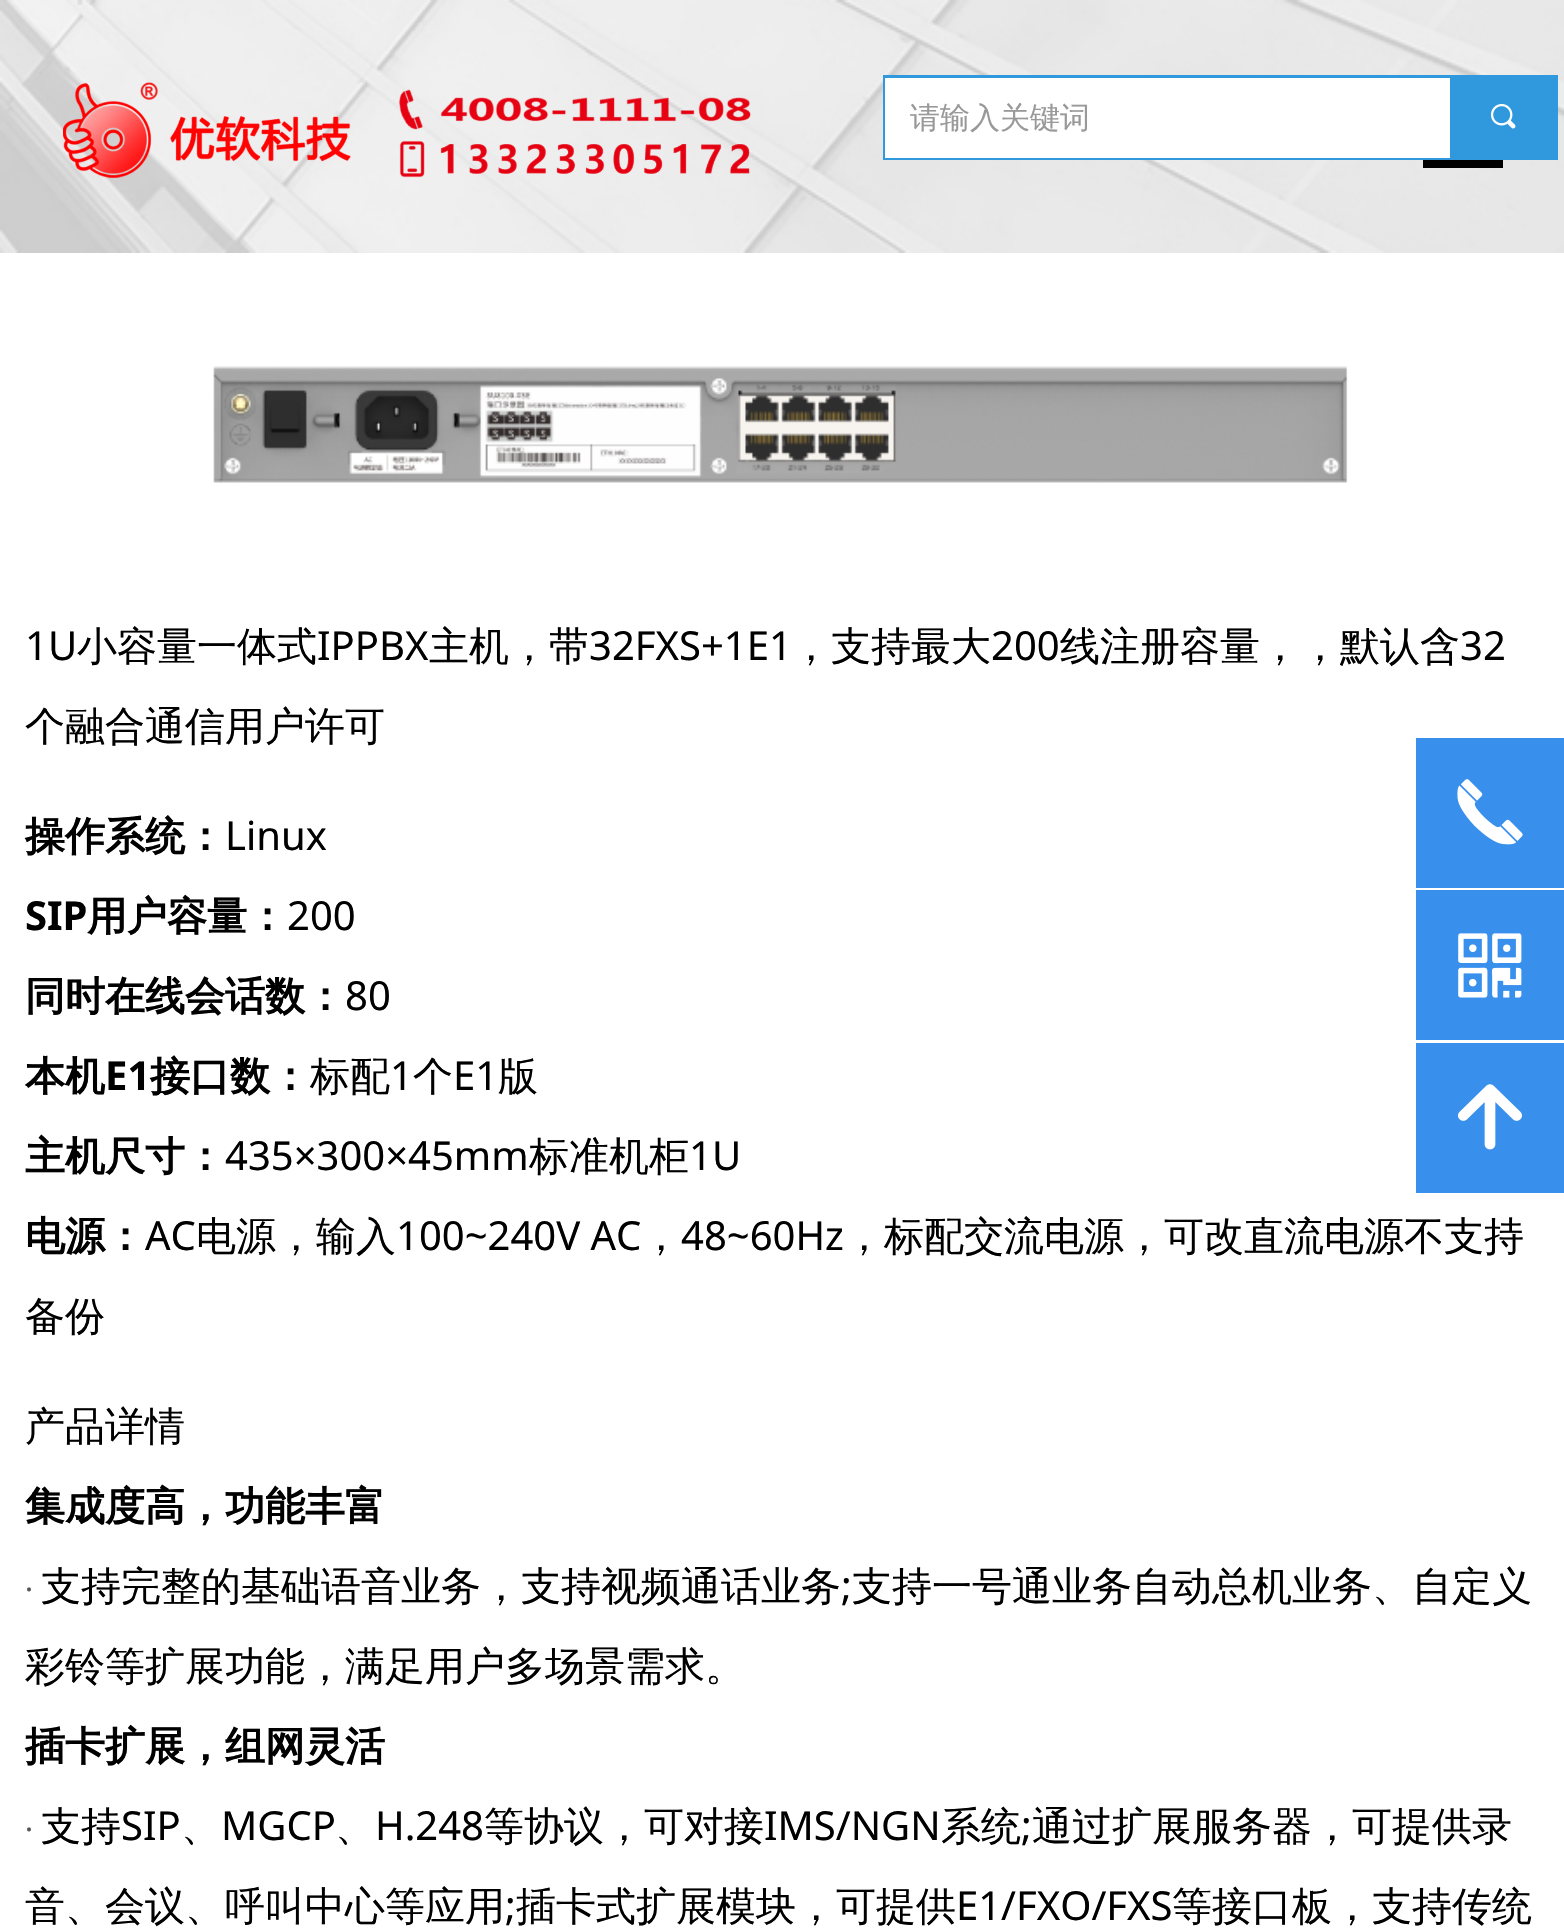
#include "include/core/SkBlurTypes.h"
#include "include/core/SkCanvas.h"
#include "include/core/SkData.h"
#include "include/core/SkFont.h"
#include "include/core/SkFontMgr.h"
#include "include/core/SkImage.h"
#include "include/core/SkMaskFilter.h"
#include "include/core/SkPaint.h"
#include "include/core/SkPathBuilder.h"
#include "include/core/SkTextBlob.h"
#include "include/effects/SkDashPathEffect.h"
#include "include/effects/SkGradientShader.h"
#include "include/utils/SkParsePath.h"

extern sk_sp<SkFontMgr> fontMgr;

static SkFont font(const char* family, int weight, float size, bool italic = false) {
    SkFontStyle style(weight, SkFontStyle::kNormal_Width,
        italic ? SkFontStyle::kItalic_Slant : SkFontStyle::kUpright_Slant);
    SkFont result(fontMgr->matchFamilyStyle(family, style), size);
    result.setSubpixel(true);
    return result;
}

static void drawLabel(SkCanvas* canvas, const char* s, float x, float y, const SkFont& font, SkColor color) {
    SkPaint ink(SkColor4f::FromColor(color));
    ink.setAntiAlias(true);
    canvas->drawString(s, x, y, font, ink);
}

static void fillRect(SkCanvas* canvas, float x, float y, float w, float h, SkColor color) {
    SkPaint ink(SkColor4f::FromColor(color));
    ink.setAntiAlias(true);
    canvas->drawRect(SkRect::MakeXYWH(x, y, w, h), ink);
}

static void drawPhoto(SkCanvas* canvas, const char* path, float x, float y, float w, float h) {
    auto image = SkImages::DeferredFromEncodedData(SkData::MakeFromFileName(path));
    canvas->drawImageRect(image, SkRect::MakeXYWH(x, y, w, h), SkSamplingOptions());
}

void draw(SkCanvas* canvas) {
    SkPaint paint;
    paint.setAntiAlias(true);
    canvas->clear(0xFFFFFFFF);
    drawPhoto(canvas, "assets/img1.png", 0, 0, 1564, 253);
    drawPhoto(canvas, "assets/img2.png", 63, 82, 688, 96);
    fillRect(canvas, 1423, 160, 80, 8, 0xFF000000);
    paint.setStroke(true);
    paint.setStrokeWidth(3);
    paint.setColor(0xFF3099DD);
    canvas->drawRect(SkRect::MakeXYWH(884.5f, 76.5f, 672, 82), paint);
    fillRect(canvas, 885, 78, 565, 80, 0xFFFFFFFF);
    SkFont font1 = font("WenQuanYi Zen Hei", 500, 30);
    drawLabel(canvas, "请输入关键词", 910, 128, font1, 0xFF999999);
    fillRect(canvas, 1450, 78, 105, 79, 0xFF3099DD);
    drawPhoto(canvas, "assets/img3.png", 1490, 103, 26, 26);
    drawPhoto(canvas, "assets/img4.png", 213, 366, 1135, 117);
    SkFont font2 = font("Noto Sans", 400, 40);
    drawLabel(canvas, "1U", 25, 660, font2, 0xFF000000);
    SkFont font3 = font("WenQuanYi Zen Hei", 500, 40);
    drawLabel(canvas, "小容量一体式", 77, 660, font3, 0xFF000000);
    drawLabel(canvas, "IPPBX", 317, 660, font2, 0xFF000000);
    drawLabel(canvas, "主机，带", 429, 660, font3, 0xFF000000);
    drawLabel(canvas, "32FXS+1E1", 589, 660, font2, 0xFF000000);
    drawLabel(canvas, "，支持最大", 791, 660, font3, 0xFF000000);
    drawLabel(canvas, "200", 991, 660, font2, 0xFF000000);
    drawLabel(canvas, "线注册容量，，默认含", 1060, 660, font3, 0xFF000000);
    drawLabel(canvas, "32", 1460, 660, font2, 0xFF000000);
    drawLabel(canvas, "个融合通信用户许可", 25, 740, font3, 0xFF000000);
    SkFont font4 = font("WenQuanYi Zen Hei", 700, 40);
    drawLabel(canvas, "操作系统：", 25, 850, font4, 0xFF000000);
    drawLabel(canvas, "Linux", 225, 850, font2, 0xFF000000);
    SkFont font5 = font("Noto Sans", 700, 40);
    drawLabel(canvas, "SIP", 25, 930, font5, 0xFF000000);
    drawLabel(canvas, "用户容量：", 87, 930, font4, 0xFF000000);
    drawLabel(canvas, "200", 287, 930, font2, 0xFF000000);
    drawLabel(canvas, "同时在线会话数：", 25, 1010, font4, 0xFF000000);
    drawLabel(canvas, "80", 345, 1010, font2, 0xFF000000);
    drawLabel(canvas, "本机", 25, 1090, font4, 0xFF000000);
    drawLabel(canvas, "E1", 105, 1090, font5, 0xFF000000);
    drawLabel(canvas, "接口数：", 150, 1090, font4, 0xFF000000);
    drawLabel(canvas, "标配", 310, 1090, font3, 0xFF000000);
    drawLabel(canvas, "1", 390, 1090, font2, 0xFF000000);
    drawLabel(canvas, "个", 413, 1090, font3, 0xFF000000);
    drawLabel(canvas, "E1", 453, 1090, font2, 0xFF000000);
    drawLabel(canvas, "版", 498, 1090, font3, 0xFF000000);
    drawLabel(canvas, "主机尺寸：", 25, 1170, font4, 0xFF000000);
    drawLabel(canvas, "435×300×45mm", 225, 1170, font2, 0xFF000000);
    drawLabel(canvas, "标准机柜", 529, 1170, font3, 0xFF000000);
    drawLabel(canvas, "1U", 689, 1170, font2, 0xFF000000);
    drawLabel(canvas, "电源：", 25, 1250, font4, 0xFF000000);
    drawLabel(canvas, "AC", 145, 1250, font2, 0xFF000000);
    drawLabel(canvas, "电源，输入", 196, 1250, font3, 0xFF000000);
    drawLabel(canvas, "100~240V AC", 396, 1250, font2, 0xFF000000);
    drawLabel(canvas, "，", 641, 1250, font3, 0xFF000000);
    drawLabel(canvas, "48~60Hz", 681, 1250, font2, 0xFF000000);
    drawLabel(canvas, "，标配交流电源，可改直流电源不支持", 844, 1250, font3, 0xFF000000);
    drawLabel(canvas, "备份", 25, 1330, font3, 0xFF000000);
    drawLabel(canvas, "产品详情", 25, 1440, font3, 0xFF000000);
    drawLabel(canvas, "集成度高，功能丰富", 25, 1520, font4, 0xFF000000);
    SkFont font6 = font("Noto Sans", 400, 30);
    drawLabel(canvas, "·", 25, 1600, font6, 0xFF555555);
    drawLabel(canvas, "支持完整的基础语音业务，支持视频通话业务", 41, 1600, font3, 0xFF000000);
    drawLabel(canvas, ";", 841, 1600, font2, 0xFF000000);
    drawLabel(canvas, "支持一号通业务自动总机业务、自定义", 852, 1600, font3, 0xFF000000);
    drawLabel(canvas, "彩铃等扩展功能，满足用户多场景需求。", 25, 1680, font3, 0xFF000000);
    drawLabel(canvas, "插卡扩展，组网灵活", 25, 1760, font4, 0xFF000000);
    drawLabel(canvas, "·", 25, 1840, font6, 0xFF555555);
    drawLabel(canvas, "支持", 41, 1840, font3, 0xFF000000);
    drawLabel(canvas, "SIP", 121, 1840, font2, 0xFF000000);
    drawLabel(canvas, "MGCP", 221, 1840, font2, 0xFF000000);
    drawLabel(canvas, "H.248", 375, 1840, font2, 0xFF000000);
    drawLabel(canvas, "等协议，可对接", 484, 1840, font3, 0xFF000000);
    drawLabel(canvas, "IMS/NGN", 764, 1840, font2, 0xFF000000);
    drawLabel(canvas, "系统", 941, 1840, font3, 0xFF000000);
    drawLabel(canvas, ";", 1021, 1840, font2, 0xFF000000);
    drawLabel(canvas, "通过扩展服务器，可提供录", 1032, 1840, font3, 0xFF000000);
    drawLabel(canvas, "、", 181, 1840, font3, 0xFF000000);
    drawLabel(canvas, "、", 335, 1840, font3, 0xFF000000);
    drawLabel(canvas, "音、会议、呼叫中心等应用", 25, 1920, font3, 0xFF000000);
    drawLabel(canvas, ";", 505, 1920, font2, 0xFF000000);
    drawLabel(canvas, "插卡式扩展模块，可提供", 516, 1920, font3, 0xFF000000);
    drawLabel(canvas, "E1/FXO/FXS", 956, 1920, font2, 0xFF000000);
    drawLabel(canvas, "等接口板，支持传统", 1172, 1920, font3, 0xFF000000);
    fillRect(canvas, 1416, 738, 148, 150, 0xFF388FEC);
    drawPhoto(canvas, "assets/img5.png", 1457, 779, 66, 66);
    fillRect(canvas, 1416, 890, 148, 150, 0xFF388FEC);
    drawPhoto(canvas, "assets/img6.png", 1458, 933, 64, 65);
    fillRect(canvas, 1416, 1043, 148, 150, 0xFF388FEC);
    drawPhoto(canvas, "assets/img7.png", 1458, 1084, 64, 66);
}
